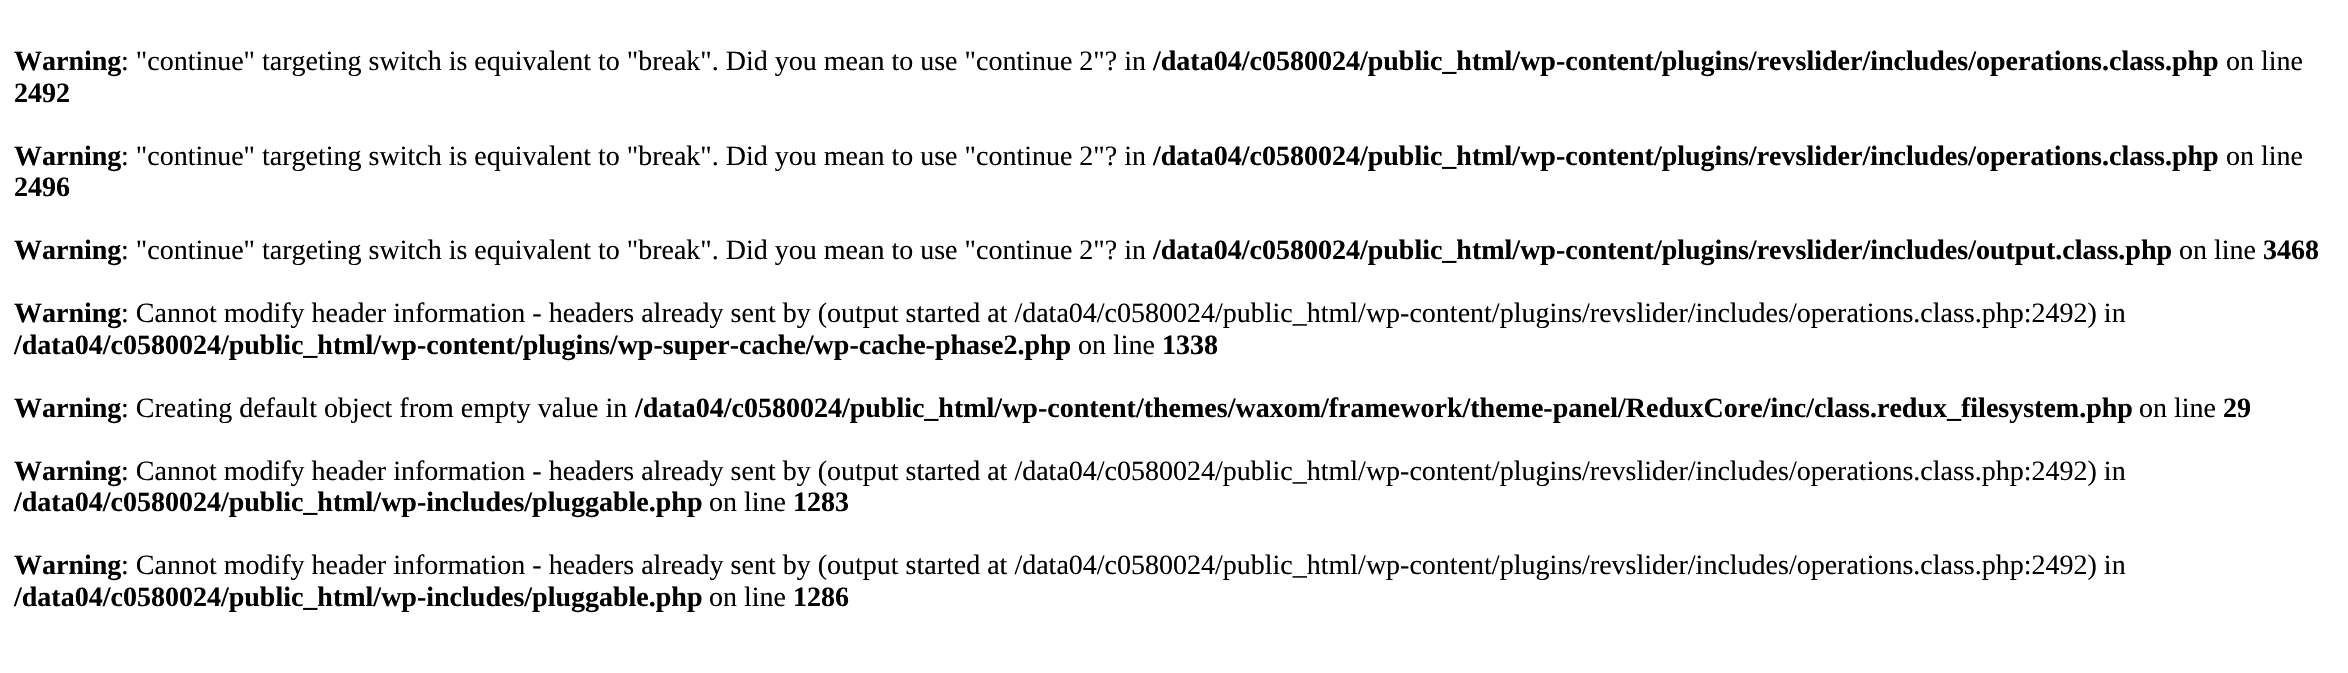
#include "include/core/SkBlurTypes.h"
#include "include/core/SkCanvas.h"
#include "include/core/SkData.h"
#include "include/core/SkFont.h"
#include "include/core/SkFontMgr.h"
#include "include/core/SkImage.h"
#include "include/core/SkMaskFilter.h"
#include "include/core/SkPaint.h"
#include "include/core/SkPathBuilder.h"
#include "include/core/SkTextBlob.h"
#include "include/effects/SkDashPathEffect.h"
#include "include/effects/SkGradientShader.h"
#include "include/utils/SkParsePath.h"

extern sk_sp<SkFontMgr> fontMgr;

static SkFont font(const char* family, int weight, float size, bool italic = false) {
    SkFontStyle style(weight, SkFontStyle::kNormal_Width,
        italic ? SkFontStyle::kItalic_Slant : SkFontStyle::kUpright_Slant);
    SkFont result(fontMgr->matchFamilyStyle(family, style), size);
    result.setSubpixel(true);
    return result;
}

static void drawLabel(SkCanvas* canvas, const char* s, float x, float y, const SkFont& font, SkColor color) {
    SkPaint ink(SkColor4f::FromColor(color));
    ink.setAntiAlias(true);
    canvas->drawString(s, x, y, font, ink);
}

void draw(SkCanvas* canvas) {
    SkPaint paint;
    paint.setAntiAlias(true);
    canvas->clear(0xFFFFFFFF);
    SkFont font1 = font("Liberation Serif", 700, 28);
    drawLabel(canvas, "Warning", 14, 70, font1, 0xFF000000);
    SkFont font2 = font("Liberation Serif", 400, 28);
    drawLabel(canvas, ": \"continue\" targeting switch is equivalent to \"break\". Did you mean to use \"continue 2\"? in", 121, 70, font2, 0xFF000000);
    drawLabel(canvas, "/data04/c0580024/public_html/wp-content/plugins/revslider/includes/operations.class.php", 1153, 70, font1, 0xFF000000);
    drawLabel(canvas, "on line", 2226, 70, font2, 0xFF000000);
    drawLabel(canvas, "2492", 14, 102, font1, 0xFF000000);
    drawLabel(canvas, "Warning", 14, 165, font1, 0xFF000000);
    drawLabel(canvas, ": \"continue\" targeting switch is equivalent to \"break\". Did you mean to use \"continue 2\"? in", 121, 165, font2, 0xFF000000);
    drawLabel(canvas, "/data04/c0580024/public_html/wp-content/plugins/revslider/includes/operations.class.php", 1153, 165, font1, 0xFF000000);
    drawLabel(canvas, "on line", 2226, 165, font2, 0xFF000000);
    drawLabel(canvas, "2496", 14, 196, font1, 0xFF000000);
    drawLabel(canvas, "Warning", 14, 259, font1, 0xFF000000);
    drawLabel(canvas, ": \"continue\" targeting switch is equivalent to \"break\". Did you mean to use \"continue 2\"? in", 121, 259, font2, 0xFF000000);
    drawLabel(canvas, "/data04/c0580024/public_html/wp-content/plugins/revslider/includes/output.class.php", 1153, 259, font1, 0xFF000000);
    drawLabel(canvas, "on line", 2179, 259, font2, 0xFF000000);
    drawLabel(canvas, "3468", 2263, 259, font1, 0xFF000000);
    drawLabel(canvas, "Warning", 14, 322, font1, 0xFF000000);
    drawLabel(canvas, ": Cannot modify header information - headers already sent by (output started at /data04/c0580024/public_html/wp-content/plugins/revslider/includes/operations.class.php:2492) in", 121, 322, font2, 0xFF000000);
    drawLabel(canvas, "/data04/c0580024/public_html/wp-content/plugins/wp-super-cache/wp-cache-phase2.php", 14, 354, font1, 0xFF000000);
    drawLabel(canvas, "on line", 1078, 354, font2, 0xFF000000);
    drawLabel(canvas, "1338", 1162, 354, font1, 0xFF000000);
    drawLabel(canvas, "Warning", 14, 417, font1, 0xFF000000);
    drawLabel(canvas, ": Creating default object from empty value in", 121, 417, font2, 0xFF000000);
    drawLabel(canvas, "/data04/c0580024/public_html/wp-content/themes/waxom/framework/theme-panel/ReduxCore/inc/class.redux_filesystem.php", 635, 417, font1, 0xFF000000);
    drawLabel(canvas, "on line", 2139, 417, font2, 0xFF000000);
    drawLabel(canvas, "29", 2223, 417, font1, 0xFF000000);
    drawLabel(canvas, "Warning", 14, 480, font1, 0xFF000000);
    drawLabel(canvas, ": Cannot modify header information - headers already sent by (output started at /data04/c0580024/public_html/wp-content/plugins/revslider/includes/operations.class.php:2492) in", 121, 480, font2, 0xFF000000);
    drawLabel(canvas, "/data04/c0580024/public_html/wp-includes/pluggable.php", 14, 511, font1, 0xFF000000);
    drawLabel(canvas, "on line", 709, 511, font2, 0xFF000000);
    drawLabel(canvas, "1283", 793, 511, font1, 0xFF000000);
    drawLabel(canvas, "Warning", 14, 574, font1, 0xFF000000);
    drawLabel(canvas, ": Cannot modify header information - headers already sent by (output started at /data04/c0580024/public_html/wp-content/plugins/revslider/includes/operations.class.php:2492) in", 121, 574, font2, 0xFF000000);
    drawLabel(canvas, "/data04/c0580024/public_html/wp-includes/pluggable.php", 14, 606, font1, 0xFF000000);
    drawLabel(canvas, "on line", 709, 606, font2, 0xFF000000);
    drawLabel(canvas, "1286", 793, 606, font1, 0xFF000000);
}
